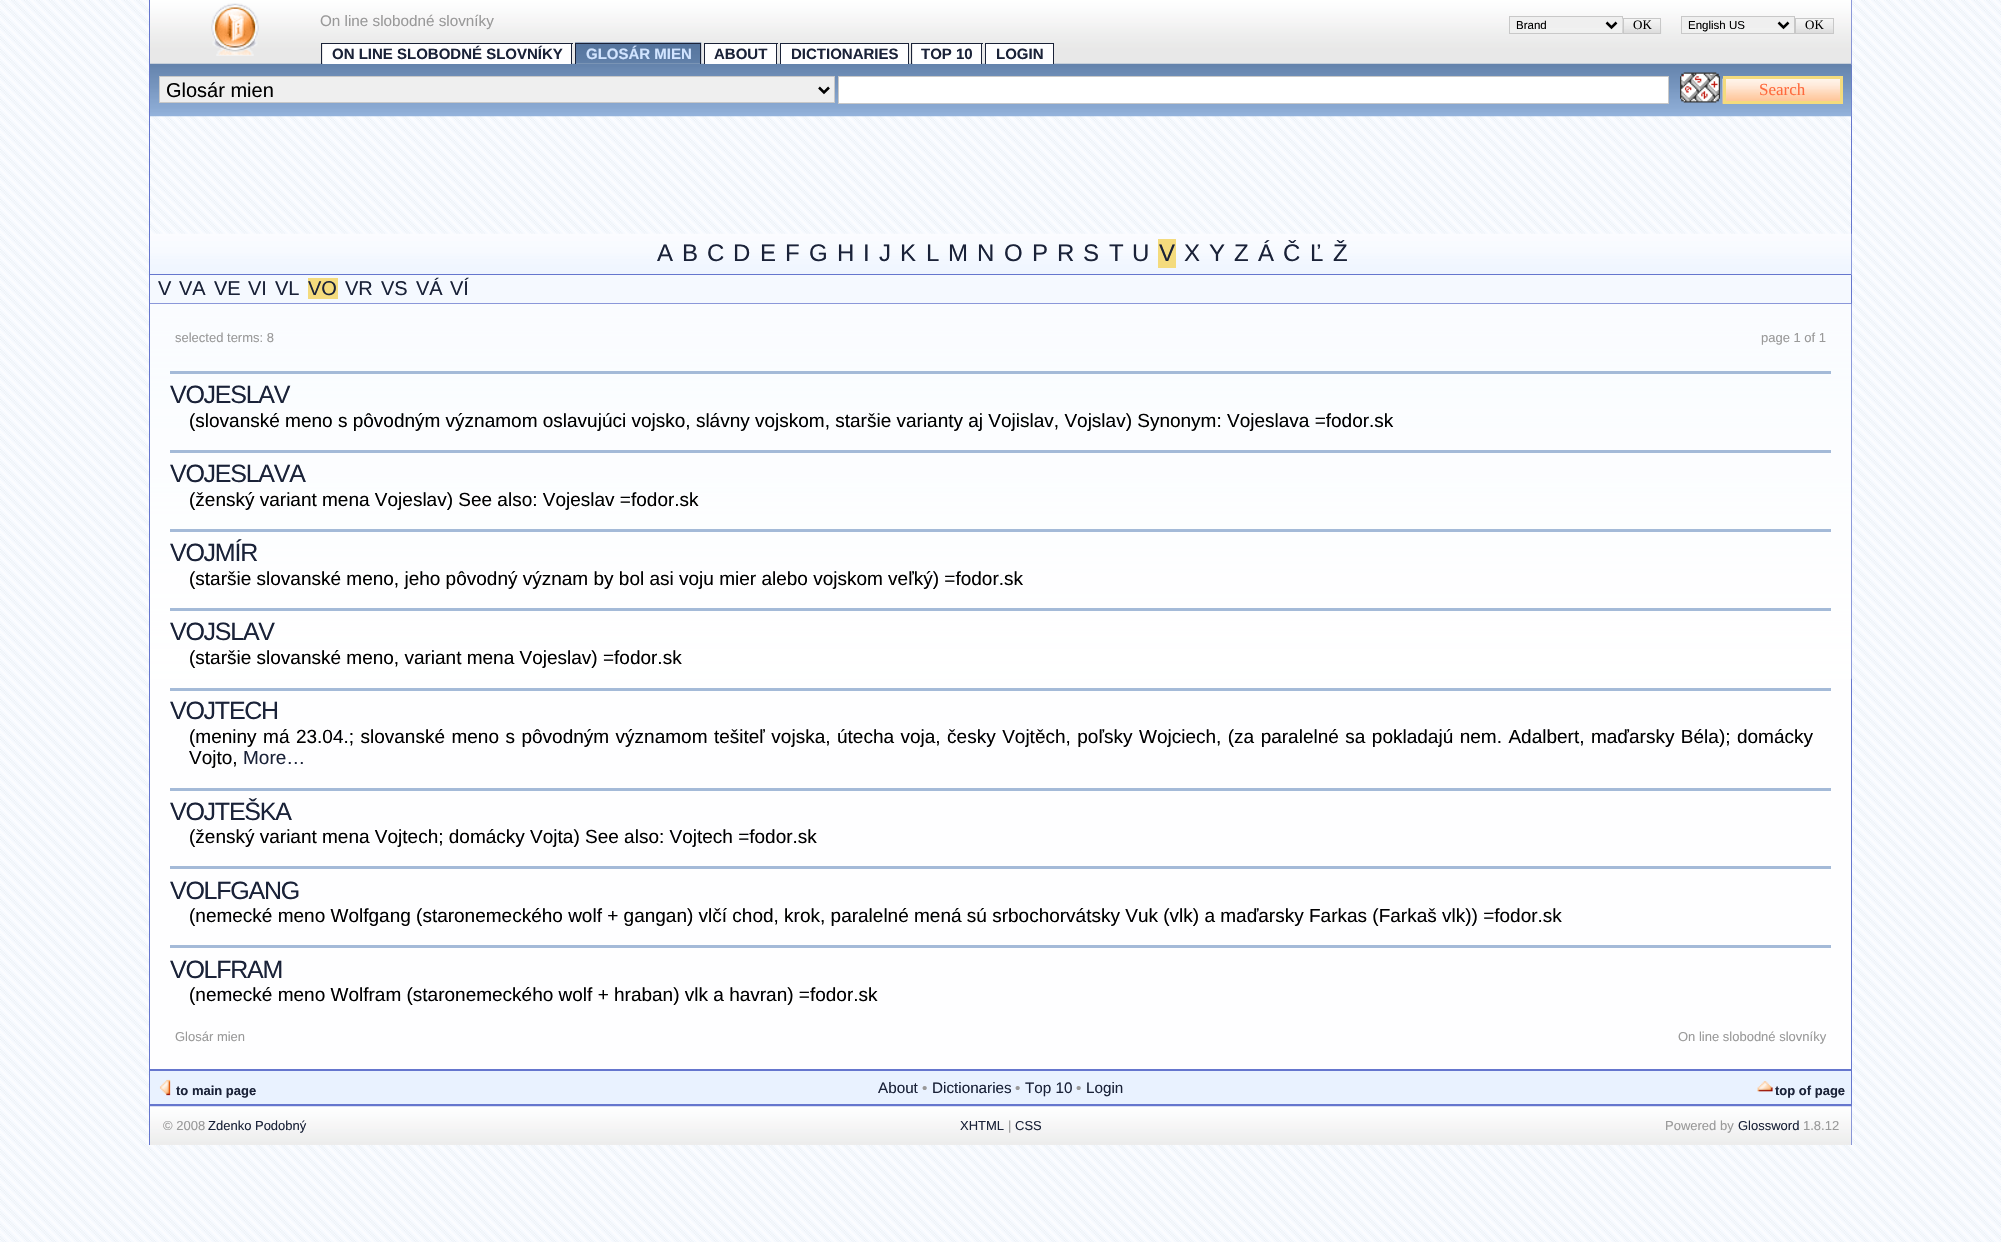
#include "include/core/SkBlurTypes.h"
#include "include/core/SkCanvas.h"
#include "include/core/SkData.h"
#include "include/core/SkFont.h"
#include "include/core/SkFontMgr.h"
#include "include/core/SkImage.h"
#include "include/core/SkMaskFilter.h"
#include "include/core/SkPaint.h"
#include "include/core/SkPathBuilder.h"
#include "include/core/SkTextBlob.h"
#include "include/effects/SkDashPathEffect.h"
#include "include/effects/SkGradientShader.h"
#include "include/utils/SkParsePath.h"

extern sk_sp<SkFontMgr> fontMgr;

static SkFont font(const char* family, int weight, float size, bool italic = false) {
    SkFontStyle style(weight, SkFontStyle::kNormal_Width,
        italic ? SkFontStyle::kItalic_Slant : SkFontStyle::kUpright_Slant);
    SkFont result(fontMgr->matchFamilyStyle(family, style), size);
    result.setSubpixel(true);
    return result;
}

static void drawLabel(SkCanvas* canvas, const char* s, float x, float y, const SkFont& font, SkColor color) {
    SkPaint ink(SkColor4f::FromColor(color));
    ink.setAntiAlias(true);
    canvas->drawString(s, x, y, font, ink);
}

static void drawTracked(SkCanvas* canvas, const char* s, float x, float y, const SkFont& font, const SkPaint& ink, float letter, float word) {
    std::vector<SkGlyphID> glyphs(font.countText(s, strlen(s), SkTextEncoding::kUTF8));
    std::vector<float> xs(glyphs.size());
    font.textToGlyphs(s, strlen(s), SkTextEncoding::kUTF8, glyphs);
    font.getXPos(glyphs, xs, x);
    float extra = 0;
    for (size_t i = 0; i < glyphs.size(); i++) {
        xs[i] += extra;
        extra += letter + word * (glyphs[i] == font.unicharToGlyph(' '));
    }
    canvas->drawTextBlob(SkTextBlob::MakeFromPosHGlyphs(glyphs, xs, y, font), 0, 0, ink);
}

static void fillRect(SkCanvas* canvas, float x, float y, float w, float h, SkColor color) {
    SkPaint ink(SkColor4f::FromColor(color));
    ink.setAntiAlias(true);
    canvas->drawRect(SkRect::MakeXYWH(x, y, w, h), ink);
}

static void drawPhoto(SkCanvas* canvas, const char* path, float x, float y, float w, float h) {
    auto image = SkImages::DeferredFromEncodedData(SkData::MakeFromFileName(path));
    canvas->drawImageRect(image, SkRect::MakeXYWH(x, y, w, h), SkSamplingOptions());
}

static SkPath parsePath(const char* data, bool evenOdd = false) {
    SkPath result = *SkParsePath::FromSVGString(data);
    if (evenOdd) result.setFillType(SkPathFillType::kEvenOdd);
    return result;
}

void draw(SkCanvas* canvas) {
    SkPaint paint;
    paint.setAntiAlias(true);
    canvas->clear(0xFFFFFFFF);
    drawPhoto(canvas, "assets/img1.png", 0, 0, 2001, 1242);
    fillRect(canvas, 1851, 0, 1, 1145, 0xFF6576CE);
    fillRect(canvas, 149, 0, 1, 1145, 0xFF6576CE);
    drawPhoto(canvas, "assets/img2.png", 150, 0, 1702, 65);
    drawPhoto(canvas, "assets/img3.png", 211, 3, 48, 53);
    SkFont font1 = font("Liberation Sans", 400, 15.25f);
    drawLabel(canvas, "On line slobodné slovníky", 320, 26, font1, 0xFF999999);
    fillRect(canvas, 1510, 17, 112, 11, 0xFFEFEFEF);
    paint.setStroke(true);
    paint.setStrokeWidth(1);
    paint.setColor(0xFFC8C8C8);
    canvas->drawRect(SkRect::MakeXYWH(1509.5f, 16.5f, 113, 17), paint);
    paint.setStrokeWidth(2.5f);
    paint.setColor(0xFF000000);
    canvas->drawPath(parsePath("M1606.5 22.5L1611.5 27.5L1616.5 22.5"), paint);
    SkFont font2 = font("Liberation Sans", 400, 11.5f);
    drawLabel(canvas, "Brand", 1516, 29, font2, 0xFF000000);
    drawPhoto(canvas, "assets/img4.png", 1622, 18, 40, 16);
    paint.setStrokeWidth(1);
    paint.setColor(0xFFC8C8C8);
    canvas->drawRect(SkRect::MakeXYWH(1623.5f, 18.5f, 37, 15), paint);
    SkFont font3 = font("Liberation Serif", 400, 13);
    drawLabel(canvas, "OK", 1633, 29, font3, 0xFF000000);
    fillRect(canvas, 1682, 17, 112, 11, 0xFFEFEFEF);
    canvas->drawRect(SkRect::MakeXYWH(1681.5f, 16.5f, 113, 17), paint);
    paint.setStrokeWidth(2.5f);
    paint.setColor(0xFF000000);
    canvas->drawPath(parsePath("M1778.5 22.5L1783.5 27.5L1788.5 22.5"), paint);
    drawLabel(canvas, "English US", 1688, 29, font2, 0xFF000000);
    drawPhoto(canvas, "assets/img5.png", 1796, 19, 37, 14);
    paint.setStrokeWidth(1);
    paint.setColor(0xFFC8C8C8);
    canvas->drawRect(SkRect::MakeXYWH(1795.5f, 18.5f, 38, 15), paint);
    drawLabel(canvas, "OK", 1805, 29, font3, 0xFF000000);
    drawPhoto(canvas, "assets/img7.png", 150, 63, 1702, 54);
    fillRect(canvas, 323, 44, 248, 20, 0xFFFEFEFF);
    fillRect(canvas, 321, 43, 252, 1, 0xFF1A2238);
    fillRect(canvas, 571, 43, 1, 21, 0xFF1A2238);
    fillRect(canvas, 321, 43, 1, 21, 0xFF1A2238);
    SkFont font4 = font("Liberation Sans", 700, 15);
    drawLabel(canvas, "ON LINE SLOBODNÉ SLOVNÍKY", 332, 59, font4, 0xFF1A2238);
    drawPhoto(canvas, "assets/img6.png", 575, 42, 127, 22);
    fillRect(canvas, 575, 43, 126, 1, 0xFF1A2238);
    fillRect(canvas, 700, 43, 1, 21, 0xFF1A2238);
    fillRect(canvas, 575, 43, 1, 21, 0xFF1A2238);
    drawLabel(canvas, "GLOSÁR MIEN", 586, 59, font4, 0xFFD1E4FF);
    fillRect(canvas, 705, 44, 71, 20, 0xFFFEFEFF);
    fillRect(canvas, 704, 43, 74, 1, 0xFF1A2238);
    fillRect(canvas, 776, 43, 1, 21, 0xFF1A2238);
    fillRect(canvas, 704, 43, 1, 21, 0xFF1A2238);
    drawLabel(canvas, "ABOUT", 714, 59, font4, 0xFF1A2238);
    fillRect(canvas, 781, 44, 127, 20, 0xFFFEFEFF);
    fillRect(canvas, 780, 43, 129, 1, 0xFF1A2238);
    fillRect(canvas, 908, 43, 1, 21, 0xFF1A2238);
    fillRect(canvas, 780, 43, 1, 21, 0xFF1A2238);
    drawLabel(canvas, "DICTIONARIES", 791, 59, font4, 0xFF1A2238);
    fillRect(canvas, 913, 44, 68, 20, 0xFFFEFEFF);
    fillRect(canvas, 911, 43, 72, 1, 0xFF1A2238);
    fillRect(canvas, 981, 43, 1, 21, 0xFF1A2238);
    fillRect(canvas, 911, 43, 1, 21, 0xFF1A2238);
    drawLabel(canvas, "TOP 10", 921, 59, font4, 0xFF1A2238);
    fillRect(canvas, 986, 44, 67, 20, 0xFFFEFEFF);
    fillRect(canvas, 985, 43, 69, 1, 0xFF1A2238);
    fillRect(canvas, 1053, 43, 1, 21, 0xFF1A2238);
    fillRect(canvas, 985, 43, 1, 21, 0xFF1A2238);
    drawLabel(canvas, "LOGIN", 996, 59, font4, 0xFF1A2238);
    paint.setStroke(false);
    paint.setColor(0xFFEFEFEF);
    canvas->drawRect(SkRect::MakeXYWH(159.5f, 76.5f, 675, 26), paint);
    paint.setStroke(true);
    paint.setColor(0xFFC8C8C8);
    canvas->drawRect(SkRect::MakeXYWH(159.5f, 76.5f, 675, 26), paint);
    paint.setStrokeWidth(2.5f);
    paint.setColor(0xFF000000);
    canvas->drawPath(parsePath("M819 87.5L824 92.5L829 87.5"), paint);
    SkFont font5 = font("Liberation Sans", 400, 20);
    drawLabel(canvas, "Glosár mien", 166, 97, font5, 0xFF000000);
    paint.setStroke(false);
    paint.setColor(0xFFFFFFFF);
    canvas->drawRect(SkRect::MakeXYWH(838.5f, 76.5f, 830, 27), paint);
    paint.setStroke(true);
    paint.setStrokeWidth(1);
    paint.setColor(0xFFC8C8C8);
    canvas->drawRect(SkRect::MakeXYWH(838.5f, 76.5f, 830, 27), paint);
    drawPhoto(canvas, "assets/img8.png", 1680, 72, 40, 31);
    drawPhoto(canvas, "assets/img9.png", 1722, 78, 118, 26);
    paint.setStrokeWidth(3);
    paint.setColor(0xFFF4DB7D);
    canvas->drawRect(SkRect::MakeXYWH(1724.5f, 77.5f, 117, 25), paint);
    SkFont font6 = font("Liberation Serif", 400, 17);
    drawLabel(canvas, "Search", 1759, 95, font6, 0xFFFF6A3D);
    drawPhoto(canvas, "assets/img10.png", 150, 233, 1702, 42);
    fillRect(canvas, 150, 274, 1701, 1, 0xFF6576CE);
    SkFont font7 = font("Liberation Sans", 400, 24);
    drawLabel(canvas, "A", 657, 261, font7, 0xFF1A2238);
    drawLabel(canvas, "B", 682, 261, font7, 0xFF1A2238);
    drawLabel(canvas, "C", 707, 261, font7, 0xFF1A2238);
    drawLabel(canvas, "D", 733, 261, font7, 0xFF1A2238);
    drawLabel(canvas, "E", 760, 261, font7, 0xFF1A2238);
    drawLabel(canvas, "F", 785, 261, font7, 0xFF1A2238);
    drawLabel(canvas, "G", 809, 261, font7, 0xFF1A2238);
    drawLabel(canvas, "H", 837, 261, font7, 0xFF1A2238);
    drawLabel(canvas, "I", 863, 261, font7, 0xFF1A2238);
    drawLabel(canvas, "J", 879, 261, font7, 0xFF1A2238);
    drawLabel(canvas, "K", 900, 261, font7, 0xFF1A2238);
    drawLabel(canvas, "L", 926, 261, font7, 0xFF1A2238);
    drawLabel(canvas, "M", 948, 261, font7, 0xFF1A2238);
    drawLabel(canvas, "N", 977, 261, font7, 0xFF1A2238);
    drawLabel(canvas, "O", 1004, 261, font7, 0xFF1A2238);
    drawLabel(canvas, "P", 1032, 261, font7, 0xFF1A2238);
    drawLabel(canvas, "R", 1057, 261, font7, 0xFF1A2238);
    drawLabel(canvas, "S", 1083, 261, font7, 0xFF1A2238);
    drawLabel(canvas, "T", 1109, 261, font7, 0xFF1A2238);
    drawLabel(canvas, "U", 1132, 261, font7, 0xFF1A2238);
    fillRect(canvas, 1158, 239, 18, 29, 0xFFF4DB7D);
    drawLabel(canvas, "V", 1159, 261, font7, 0xFF1A2238);
    drawLabel(canvas, "X", 1184, 261, font7, 0xFF1A2238);
    drawLabel(canvas, "Y", 1209, 261, font7, 0xFF1A2238);
    drawLabel(canvas, "Z", 1234, 261, font7, 0xFF1A2238);
    drawLabel(canvas, "Á", 1258, 261, font7, 0xFF1A2238);
    drawLabel(canvas, "Č", 1283, 261, font7, 0xFF1A2238);
    drawLabel(canvas, "Ľ", 1310, 261, font7, 0xFF1A2238);
    drawLabel(canvas, "Ž", 1333, 261, font7, 0xFF1A2238);
    fillRect(canvas, 150, 275, 1701, 28, 0xFFF5F9FF);
    fillRect(canvas, 150, 303, 1701, 1, 0xFF6576CE);
    drawLabel(canvas, "V", 158, 295, font5, 0xFF1A2238);
    drawLabel(canvas, "VA", 179, 295, font5, 0xFF1A2238);
    drawLabel(canvas, "VE", 214, 295, font5, 0xFF1A2238);
    drawLabel(canvas, "VI", 248, 295, font5, 0xFF1A2238);
    drawLabel(canvas, "VL", 275, 295, font5, 0xFF1A2238);
    fillRect(canvas, 308, 278, 30, 21, 0xFFF4DB7D);
    drawLabel(canvas, "VO", 308, 295, font5, 0xFF1A2238);
    drawLabel(canvas, "VR", 345, 295, font5, 0xFF1A2238);
    drawLabel(canvas, "VS", 381, 295, font5, 0xFF1A2238);
    drawLabel(canvas, "VÁ", 416, 295, font5, 0xFF1A2238);
    drawLabel(canvas, "VÍ", 450, 295, font5, 0xFF1A2238);
    fillRect(canvas, 150, 678, 1701, 391, 0xFFFEFEFF);
    drawPhoto(canvas, "assets/img11.png", 150, 303, 1702, 376);
    SkFont font8 = font("Liberation Sans", 400, 13);
    drawLabel(canvas, "selected terms: 8", 175, 342, font8, 0xFF999999);
    drawLabel(canvas, "page 1 of 1", 1761, 342, font8, 0xFF999999);
    fillRect(canvas, 170, 371, 1661, 3, 0xFFA4BAD8);
    SkFont font9 = font("Liberation Sans", 400, 25);
    paint.setStroke(false);
    paint.setColor(0xFF1A2238);
    drawTracked(canvas, "VOJESLAV", 170, 403, font9, paint, -1.25f, 0);
    SkFont font10 = font("Liberation Sans", 400, 19);
    drawLabel(canvas, "(slovanské meno s pôvodným významom oslavujúci vojsko, slávny vojskom, staršie varianty aj Vojislav, Vojslav) Synonym: Vojeslava =fodor.sk", 189, 427, font10, 0xFF000000);
    fillRect(canvas, 170, 450, 1661, 3, 0xFFA4BAD8);
    drawTracked(canvas, "VOJESLAVA", 170, 482, font9, paint, -1.25f, 0);
    drawLabel(canvas, "(ženský variant mena Vojeslav) See also: Vojeslav =fodor.sk", 189, 506, font10, 0xFF000000);
    fillRect(canvas, 170, 529, 1661, 3, 0xFFA4BAD8);
    drawTracked(canvas, "VOJMÍR", 170, 561, font9, paint, -1.25f, 0);
    drawLabel(canvas, "(staršie slovanské meno, jeho pôvodný význam by bol asi voju mier alebo vojskom veľký) =fodor.sk", 189, 585, font10, 0xFF000000);
    fillRect(canvas, 170, 608, 1661, 3, 0xFFA4BAD8);
    drawTracked(canvas, "VOJSLAV", 170, 640, font9, paint, -1.25f, 0);
    drawLabel(canvas, "(staršie slovanské meno, variant mena Vojeslav) =fodor.sk", 189, 664, font10, 0xFF000000);
    fillRect(canvas, 170, 688, 1661, 3, 0xFFA4BAD8);
    drawTracked(canvas, "VOJTECH", 170, 719, font9, paint, -1.25f, 0);
    paint.setColor(0xFF000000);
    drawTracked(canvas, "(meniny má 23.04.; slovanské meno s pôvodným významom tešiteľ vojska, útecha voja, česky Vojtěch, poľsky Wojciech, (za paralelné sa pokladajú nem. Adalbert, maďarsky Béla); domácky", 189, 743, font10, paint, 0, 1.2f);
    drawLabel(canvas, "Vojto,", 189, 764, font10, 0xFF000000);
    drawLabel(canvas, "More…", 243, 764, font10, 0xFF1A2238);
    fillRect(canvas, 170, 788, 1661, 3, 0xFFA4BAD8);
    paint.setColor(0xFF1A2238);
    drawTracked(canvas, "VOJTEŠKA", 170, 820, font9, paint, -1.25f, 0);
    drawLabel(canvas, "(ženský variant mena Vojtech; domácky Vojta) See also: Vojtech =fodor.sk", 189, 843, font10, 0xFF000000);
    fillRect(canvas, 170, 866, 1661, 3, 0xFFA4BAD8);
    drawTracked(canvas, "VOLFGANG", 170, 899, font9, paint, -1.25f, 0);
    drawLabel(canvas, "(nemecké meno Wolfgang (staronemeckého wolf + gangan) vlčí chod, krok, paralelné mená sú srbochorvátsky Vuk (vlk) a maďarsky Farkas (Farkaš vlk)) =fodor.sk", 189, 922, font10, 0xFF000000);
    fillRect(canvas, 170, 945, 1661, 3, 0xFFA4BAD8);
    drawTracked(canvas, "VOLFRAM", 170, 978, font9, paint, -1.25f, 0);
    drawLabel(canvas, "(nemecké meno Wolfram (staronemeckého wolf + hraban) vlk a havran) =fodor.sk", 189, 1001, font10, 0xFF000000);
    drawLabel(canvas, "Glosár mien", 175, 1041, font8, 0xFF999999);
    drawLabel(canvas, "On line slobodné slovníky", 1678, 1041, font8, 0xFF999999);
    fillRect(canvas, 150, 1069, 1701, 2, 0xFF6576CE);
    fillRect(canvas, 150, 1071, 1701, 33, 0xFFE9F2FF);
    drawPhoto(canvas, "assets/img12.png", 159, 1079, 12, 17);
    SkFont font11 = font("Liberation Sans", 700, 13);
    drawLabel(canvas, "to main page", 176, 1095, font11, 0xFF1A2238);
    drawLabel(canvas, "About", 878, 1093, font1, 0xFF1A2238);
    drawLabel(canvas, "•", 922, 1093, font1, 0xFF999999);
    drawLabel(canvas, "Dictionaries", 932, 1093, font1, 0xFF1A2238);
    drawLabel(canvas, "•", 1015, 1093, font1, 0xFF999999);
    drawLabel(canvas, "Top 10", 1025, 1093, font1, 0xFF1A2238);
    drawLabel(canvas, "•", 1076, 1093, font1, 0xFF999999);
    drawLabel(canvas, "Login", 1086, 1093, font1, 0xFF1A2238);
    drawPhoto(canvas, "assets/img13.png", 1757, 1081, 16, 11);
    drawLabel(canvas, "top of page", 1775, 1095, font11, 0xFF1A2238);
    fillRect(canvas, 150, 1104, 1701, 3, 0xFF6576CE);
    drawPhoto(canvas, "assets/img14.png", 150, 1106, 1702, 39);
    drawLabel(canvas, "© 2008", 163, 1130, font8, 0xFF999999);
    drawLabel(canvas, "Zdenko Podobný", 208, 1130, font8, 0xFF1A2238);
    drawLabel(canvas, "XHTML", 960, 1130, font8, 0xFF1A2238);
    drawLabel(canvas, "|", 1008, 1130, font8, 0xFF999999);
    drawLabel(canvas, "CSS", 1015, 1130, font8, 0xFF1A2238);
    drawLabel(canvas, "Powered by", 1665, 1130, font8, 0xFF999999);
    drawLabel(canvas, "Glossword", 1738, 1130, font8, 0xFF1A2238);
    drawLabel(canvas, "1.8.12", 1803, 1130, font8, 0xFF999999);
}
